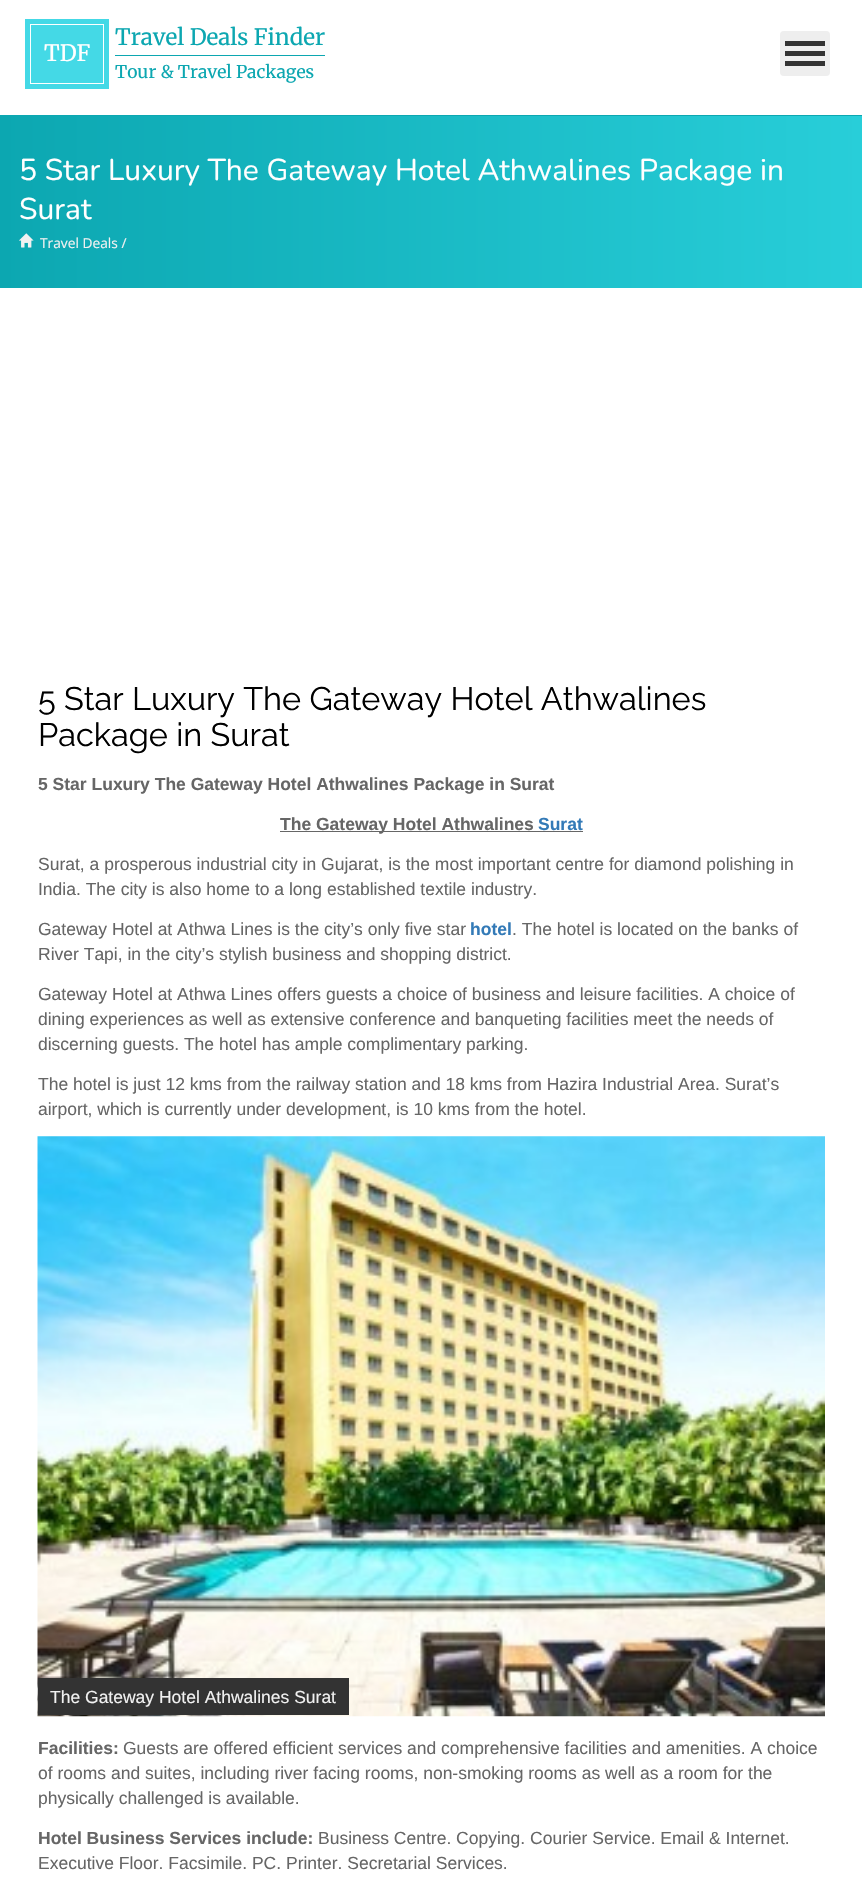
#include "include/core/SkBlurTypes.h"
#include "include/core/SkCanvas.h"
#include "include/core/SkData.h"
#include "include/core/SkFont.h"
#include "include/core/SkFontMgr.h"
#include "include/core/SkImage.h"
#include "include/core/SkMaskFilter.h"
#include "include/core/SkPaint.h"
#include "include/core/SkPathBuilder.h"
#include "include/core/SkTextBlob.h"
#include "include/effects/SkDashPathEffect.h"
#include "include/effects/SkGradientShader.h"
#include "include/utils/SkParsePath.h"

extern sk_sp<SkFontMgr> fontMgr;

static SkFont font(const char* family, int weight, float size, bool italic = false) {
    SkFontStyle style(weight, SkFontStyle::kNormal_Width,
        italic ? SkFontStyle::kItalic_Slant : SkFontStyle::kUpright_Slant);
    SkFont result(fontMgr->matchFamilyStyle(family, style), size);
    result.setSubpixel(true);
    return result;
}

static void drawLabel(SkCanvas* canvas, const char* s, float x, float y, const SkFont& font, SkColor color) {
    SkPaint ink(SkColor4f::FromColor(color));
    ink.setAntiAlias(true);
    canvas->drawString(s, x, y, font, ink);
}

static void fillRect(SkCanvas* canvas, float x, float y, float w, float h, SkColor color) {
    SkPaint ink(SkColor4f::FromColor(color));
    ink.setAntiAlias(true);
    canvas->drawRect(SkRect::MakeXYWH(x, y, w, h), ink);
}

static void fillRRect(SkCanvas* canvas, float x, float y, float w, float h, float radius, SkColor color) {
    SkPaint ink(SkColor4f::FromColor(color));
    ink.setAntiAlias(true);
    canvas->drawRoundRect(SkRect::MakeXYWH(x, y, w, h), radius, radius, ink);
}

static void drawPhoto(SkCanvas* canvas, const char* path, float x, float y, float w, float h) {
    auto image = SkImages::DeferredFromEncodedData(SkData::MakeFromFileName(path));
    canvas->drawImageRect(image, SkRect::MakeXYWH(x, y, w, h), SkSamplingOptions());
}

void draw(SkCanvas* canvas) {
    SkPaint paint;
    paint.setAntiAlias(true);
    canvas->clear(0xFFFFFFFF);
    fillRect(canvas, 0, 115, 862, 1, 0xFF0CA7B1);
    fillRect(canvas, 25, 19, 84, 70, 0xFF44D9E6);
    paint.setStroke(true);
    paint.setStrokeWidth(1);
    paint.setColor(0xFFFFFFFF);
    canvas->drawRect(SkRect::MakeXYWH(30.5f, 24.5f, 73, 59), paint);
    SkFont font1 = font("Merriweather", 300, 22.5f);
    drawLabel(canvas, "TDF", 44, 61, font1, 0xFFFFFFFF);
    drawLabel(canvas, "Travel Deals Finder", 115, 45, font1, 0xFF0CA7B1);
    fillRect(canvas, 115, 55, 210, 1, 0xFF0CA7B1);
    SkFont font2 = font("Merriweather", 300, 17.5f);
    drawLabel(canvas, "Tour & Travel Packages", 115, 78, font2, 0xFF0CA7B1);
    fillRRect(canvas, 780, 31, 50, 45, 4, 0xFFEEEEEE);
    fillRect(canvas, 785, 41, 40, 5, 0xFF333333);
    fillRect(canvas, 785, 51, 40, 5, 0xFF333333);
    fillRect(canvas, 785, 61, 40, 5, 0xFF333333);
    paint.setStroke(false);
    {
        const SkColor colors[] = {0xFF28CED9, 0xFF0CA7B1};
        const float stops[] = {0, 1};
        const SkPoint ends[] = {{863, 202}, {0, 202}};
        paint.setShader(SkGradientShader::MakeLinear(ends, colors, stops, 2, SkTileMode::kClamp));
        paint.setAlpha(255);
    }
    canvas->drawRect(SkRect::MakeXYWH(0, 116, 862, 172), paint);
    SkFont font3 = font("Nunito", 200, 30);
    drawLabel(canvas, "5 Star Luxury The Gateway Hotel Athwalines Package in", 19, 180, font3, 0xFFFFFFFF);
    drawLabel(canvas, "Surat", 19, 219, font3, 0xFFFFFFFF);
    drawPhoto(canvas, "assets/img1.png", 19, 233, 15, 15);
    SkFont font4 = font("Open Sans", 400, 13.75f);
    drawLabel(canvas, "Travel Deals /", 40, 248, font4, 0xFFF1F1F1);
    SkFont font5 = font("Raleway", 100, 32.5f);
    drawLabel(canvas, "5 Star Luxury The Gateway Hotel Athwalines", 38, 710, font5, 0xFF000000);
    drawLabel(canvas, "Package in Surat", 38, 746, font5, 0xFF000000);
    SkFont font6 = font("Liberation Sans", 700, 17.5f);
    drawLabel(canvas, "5 Star Luxury The Gateway Hotel Athwalines Package in Surat", 38, 790, font6, 0xFF666666);
    fillRect(canvas, 280, 831, 303, 1, 0xFF666666);
    drawLabel(canvas, "The Gateway Hotel Athwalines", 280, 830, font6, 0xFF666666);
    drawLabel(canvas, "Surat", 538, 830, font6, 0xFF337AB7);
    SkFont font7 = font("Liberation Sans", 400, 17.5f);
    drawLabel(canvas, "Surat, a prosperous industrial city in Gujarat, is the most important centre for diamond polishing in", 38, 870, font7, 0xFF666666);
    drawLabel(canvas, "India. The city is also home to a long established textile industry.", 38, 895, font7, 0xFF666666);
    drawLabel(canvas, "Gateway Hotel at Athwa Lines is the city’s only five star", 38, 935, font7, 0xFF666666);
    drawLabel(canvas, "hotel", 470, 935, font6, 0xFF337AB7);
    drawLabel(canvas, ". The hotel is located on the banks of", 512, 935, font7, 0xFF666666);
    drawLabel(canvas, "River Tapi, in the city’s stylish business and shopping district.", 38, 960, font7, 0xFF666666);
    drawLabel(canvas, "Gateway Hotel at Athwa Lines offers guests a choice of business and leisure facilities. A choice of", 38, 1000, font7, 0xFF666666);
    drawLabel(canvas, "dining experiences as well as extensive conference and banqueting facilities meet the needs of", 38, 1025, font7, 0xFF666666);
    drawLabel(canvas, "discerning guests. The hotel has ample complimentary parking.", 38, 1050, font7, 0xFF666666);
    drawLabel(canvas, "The hotel is just 12 kms from the railway station and 18 kms from Hazira Industrial Area. Surat’s", 38, 1090, font7, 0xFF666666);
    drawLabel(canvas, "airport, which is currently under development, is 10 kms from the hotel.", 38, 1115, font7, 0xFF666666);
    drawPhoto(canvas, "assets/img2.png", 37, 1136, 788, 581);
    fillRect(canvas, 38, 1678, 311, 37, 0xFF333333);
    drawLabel(canvas, "The Gateway Hotel Athwalines Surat", 50, 1703, font7, 0xFFF1F1F1);
    drawLabel(canvas, "Facilities:", 38, 1754, font6, 0xFF666666);
    drawLabel(canvas, "Guests are offered efficient services and comprehensive facilities and amenities. A choice", 123, 1754, font7, 0xFF666666);
    drawLabel(canvas, "of rooms and suites, including river facing rooms, non-smoking rooms as well as a room for the", 38, 1779, font7, 0xFF666666);
    drawLabel(canvas, "physically challenged is available.", 38, 1804, font7, 0xFF666666);
    drawLabel(canvas, "Hotel Business Services include:", 38, 1844, font6, 0xFF666666);
    drawLabel(canvas, "Business Centre. Copying. Courier Service. Email & Internet.", 318, 1844, font7, 0xFF666666);
    drawLabel(canvas, "Executive Floor. Facsimile. PC. Printer. Secretarial Services.", 38, 1869, font7, 0xFF666666);
}
